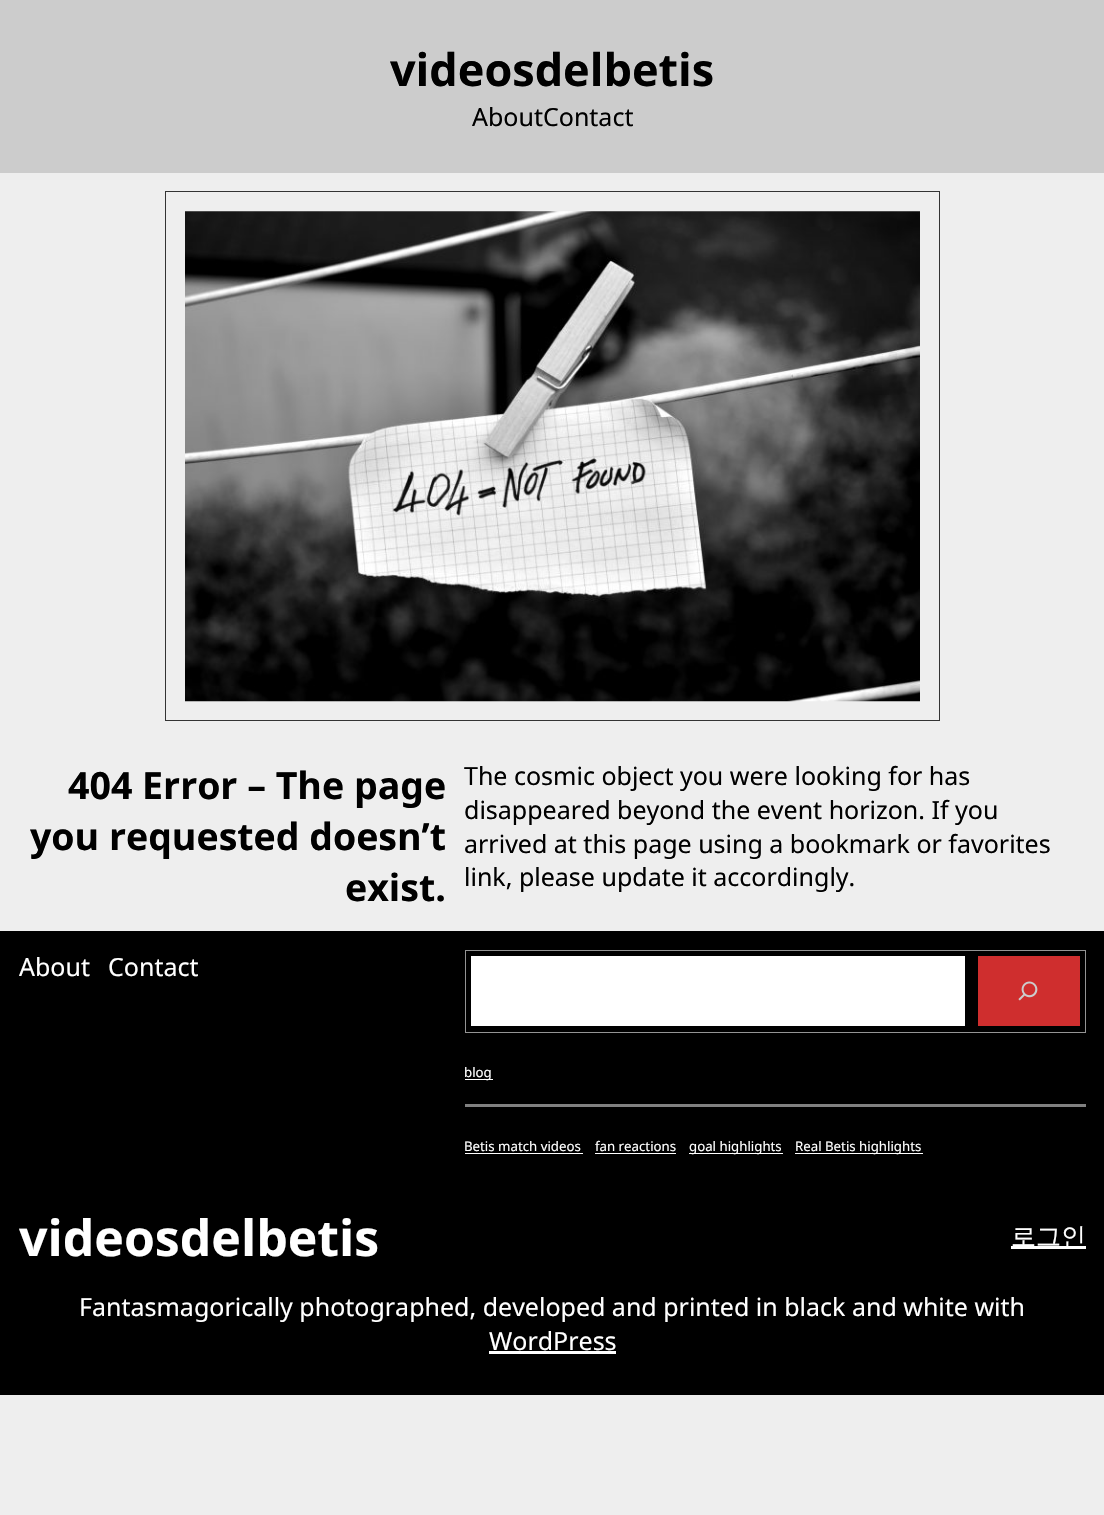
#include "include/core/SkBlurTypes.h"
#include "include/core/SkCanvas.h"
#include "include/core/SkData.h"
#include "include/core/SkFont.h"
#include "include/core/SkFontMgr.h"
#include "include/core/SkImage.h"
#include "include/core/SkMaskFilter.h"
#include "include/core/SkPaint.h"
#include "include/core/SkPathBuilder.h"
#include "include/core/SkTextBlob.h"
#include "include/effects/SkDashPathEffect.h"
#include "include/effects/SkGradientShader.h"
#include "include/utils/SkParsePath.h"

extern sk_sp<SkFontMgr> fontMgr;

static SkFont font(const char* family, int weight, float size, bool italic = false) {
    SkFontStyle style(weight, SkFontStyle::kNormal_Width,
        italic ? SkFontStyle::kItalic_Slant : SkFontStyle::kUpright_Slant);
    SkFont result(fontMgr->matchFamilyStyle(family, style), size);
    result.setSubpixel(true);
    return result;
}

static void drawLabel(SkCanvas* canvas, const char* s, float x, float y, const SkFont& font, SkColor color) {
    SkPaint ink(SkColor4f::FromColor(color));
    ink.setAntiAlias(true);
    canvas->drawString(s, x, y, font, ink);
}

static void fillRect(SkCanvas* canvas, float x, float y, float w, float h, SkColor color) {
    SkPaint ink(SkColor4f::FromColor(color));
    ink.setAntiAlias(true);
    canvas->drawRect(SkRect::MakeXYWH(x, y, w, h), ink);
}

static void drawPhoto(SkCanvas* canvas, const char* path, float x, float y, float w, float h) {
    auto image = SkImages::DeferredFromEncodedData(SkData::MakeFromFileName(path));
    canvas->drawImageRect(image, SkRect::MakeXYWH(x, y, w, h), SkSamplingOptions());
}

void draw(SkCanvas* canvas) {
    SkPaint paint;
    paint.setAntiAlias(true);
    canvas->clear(0xFFEEEEEE);
    fillRect(canvas, 0, 0, 1104, 173, 0xFFCCCCCC);
    SkFont font1 = font("Noto Sans", 700, 45);
    drawLabel(canvas, "videosdelbetis", 390, 86, font1, 0xFF000000);
    SkFont font2 = font("Noto Sans", 400, 25);
    drawLabel(canvas, "AboutContact", 472, 126, font2, 0xFF000000);
    paint.setStroke(true);
    paint.setStrokeWidth(1);
    paint.setColor(0xFF333333);
    canvas->drawRect(SkRect::MakeXYWH(165.5f, 191.5f, 774, 529), paint);
    drawPhoto(canvas, "assets/img1.png", 185, 211, 735, 491);
    SkFont font3 = font("Noto Sans", 700, 37.5f);
    drawLabel(canvas, "404 Error – The page", 68, 799, font3, 0xFF000000);
    drawLabel(canvas, "you requested doesn’t", 30, 850, font3, 0xFF000000);
    drawLabel(canvas, "exist.", 345, 901, font3, 0xFF000000);
    drawLabel(canvas, "The cosmic object you were looking for has", 464, 785, font2, 0xFF000000);
    drawLabel(canvas, "disappeared beyond the event horizon. If you", 464, 819, font2, 0xFF000000);
    drawLabel(canvas, "arrived at this page using a bookmark or favorites", 464, 853, font2, 0xFF000000);
    drawLabel(canvas, "link, please update it accordingly.", 464, 886, font2, 0xFF000000);
    fillRect(canvas, 0, 931, 1104, 464, 0xFF000000);
    drawLabel(canvas, "About", 19, 976, font2, 0xFFFFFFFF);
    drawLabel(canvas, "Contact", 108, 976, font2, 0xFFFFFFFF);
    paint.setColor(0xFF949494);
    canvas->drawRect(SkRect::MakeXYWH(465.5f, 950.5f, 620, 82), paint);
    fillRect(canvas, 471, 956, 494, 70, 0xFFFFFFFF);
    fillRect(canvas, 978, 956, 102, 70, 0xFFCF2E2E);
    drawPhoto(canvas, "assets/img2.png", 1018, 981, 20, 20);
    fillRect(canvas, 465, 1079, 28, 1, 0xFFFFFFFF);
    SkFont font4 = font("Noto Sans", 400, 13.25f);
    drawLabel(canvas, "blog", 464, 1077, font4, 0xFFFFFFFF);
    fillRect(canvas, 465, 1104, 621, 3, 0xFF808080);
    drawLabel(canvas, "Betis match videos", 464, 1151, font4, 0xFFFFFFFF);
    fillRect(canvas, 465, 1153, 118, 1, 0xFFFFFFFF);
    drawLabel(canvas, "fan reactions", 595, 1151, font4, 0xFFFFFFFF);
    fillRect(canvas, 595, 1153, 81, 1, 0xFFFFFFFF);
    fillRect(canvas, 689, 1153, 94, 1, 0xFFFFFFFF);
    drawLabel(canvas, "goal highlights", 689, 1151, font4, 0xFFFFFFFF);
    fillRect(canvas, 795, 1153, 128, 1, 0xFFFFFFFF);
    drawLabel(canvas, "Real Betis highlights", 795, 1151, font4, 0xFFFFFFFF);
    SkFont font5 = font("Noto Sans", 700, 50);
    drawLabel(canvas, "videosdelbetis", 19, 1256, font5, 0xFFFFFFFF);
    fillRect(canvas, 1011, 1246, 75, 3, 0xFFFFFFFF);
    SkFont font6 = font("WenQuanYi Zen Hei", 500, 25);
    drawLabel(canvas, "로그인", 1011, 1245, font6, 0xFFFFFFFF);
    drawLabel(canvas, "Fantasmagorically photographed, developed and printed in black and white with", 79, 1316, font2, 0xFFFFFFFF);
    drawLabel(canvas, "WordPress", 489, 1350, font2, 0xFFFFFFFF);
    fillRect(canvas, 489, 1351, 127, 3, 0xFFFFFFFF);
}
